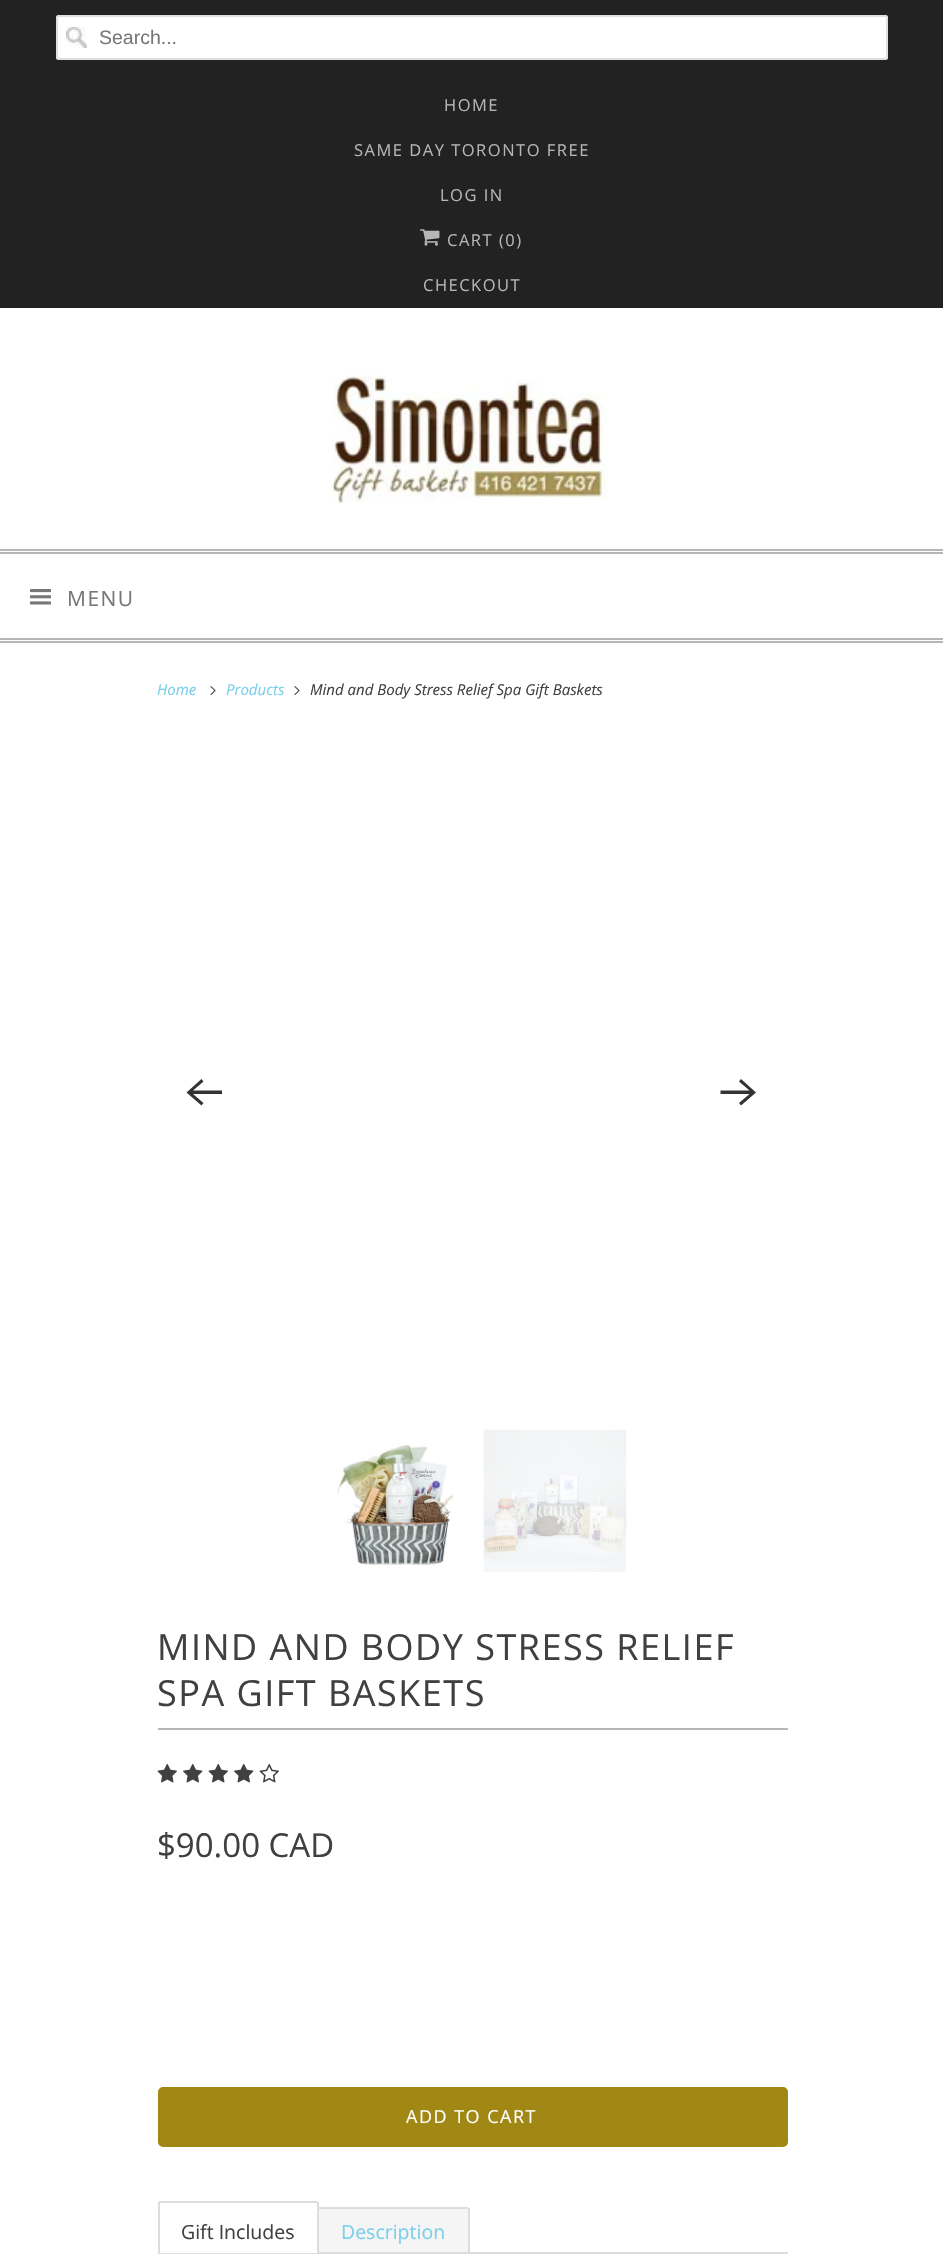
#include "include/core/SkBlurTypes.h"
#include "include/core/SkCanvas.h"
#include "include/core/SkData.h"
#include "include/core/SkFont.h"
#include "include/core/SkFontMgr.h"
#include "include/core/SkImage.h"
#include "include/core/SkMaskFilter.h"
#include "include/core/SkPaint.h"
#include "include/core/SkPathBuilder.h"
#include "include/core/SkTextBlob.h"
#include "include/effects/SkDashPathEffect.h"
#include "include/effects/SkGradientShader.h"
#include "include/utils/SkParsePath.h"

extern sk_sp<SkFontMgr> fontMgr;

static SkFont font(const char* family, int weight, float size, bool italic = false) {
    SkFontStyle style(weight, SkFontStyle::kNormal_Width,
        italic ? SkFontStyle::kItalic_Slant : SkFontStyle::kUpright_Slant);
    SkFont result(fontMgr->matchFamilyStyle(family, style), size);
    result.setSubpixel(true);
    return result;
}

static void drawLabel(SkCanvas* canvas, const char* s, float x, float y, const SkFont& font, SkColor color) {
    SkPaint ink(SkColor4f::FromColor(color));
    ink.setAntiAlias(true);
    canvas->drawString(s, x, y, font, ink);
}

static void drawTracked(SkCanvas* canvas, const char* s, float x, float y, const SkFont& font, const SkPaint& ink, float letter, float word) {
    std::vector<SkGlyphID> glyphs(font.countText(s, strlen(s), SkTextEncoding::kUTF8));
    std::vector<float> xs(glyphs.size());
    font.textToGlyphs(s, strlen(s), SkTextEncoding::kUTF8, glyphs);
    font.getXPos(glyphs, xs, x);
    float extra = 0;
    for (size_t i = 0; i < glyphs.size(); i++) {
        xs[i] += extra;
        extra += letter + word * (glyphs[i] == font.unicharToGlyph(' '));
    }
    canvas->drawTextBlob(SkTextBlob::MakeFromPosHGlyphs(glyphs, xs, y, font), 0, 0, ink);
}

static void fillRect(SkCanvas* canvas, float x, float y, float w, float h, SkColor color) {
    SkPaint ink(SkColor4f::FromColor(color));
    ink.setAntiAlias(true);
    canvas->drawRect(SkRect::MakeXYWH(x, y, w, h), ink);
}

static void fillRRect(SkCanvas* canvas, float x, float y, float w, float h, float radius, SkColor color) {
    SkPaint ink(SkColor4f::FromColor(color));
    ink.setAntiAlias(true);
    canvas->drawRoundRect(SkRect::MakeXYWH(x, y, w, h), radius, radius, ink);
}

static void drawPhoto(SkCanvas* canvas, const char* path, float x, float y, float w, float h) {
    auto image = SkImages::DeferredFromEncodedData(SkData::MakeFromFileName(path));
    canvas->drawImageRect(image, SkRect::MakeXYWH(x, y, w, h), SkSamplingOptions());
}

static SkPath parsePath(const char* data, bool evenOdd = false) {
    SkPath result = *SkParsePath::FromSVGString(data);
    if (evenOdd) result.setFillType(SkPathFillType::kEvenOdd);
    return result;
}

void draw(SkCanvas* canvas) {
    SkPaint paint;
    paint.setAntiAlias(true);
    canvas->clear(0xFFFFFFFF);
    fillRect(canvas, 0, 0, 943, 308, 0xFF222222);
    fillRRect(canvas, 56, 15, 832, 45, 3, 0xFFFFFFFF);
    drawPhoto(canvas, "assets/img1.png", 66, 27, 21, 21);
    paint.setStroke(true);
    paint.setStrokeWidth(2);
    paint.setColor(0xFFDFDFDF);
    canvas->drawRoundRect(SkRect::MakeXYWH(57, 16, 830, 43), 2, 2, paint);
    SkFont font1 = font("Liberation Sans", 400, 19.5f);
    drawLabel(canvas, "Search...", 99, 44, font1, 0xFF777777);
    SkFont font2 = font("Open Sans", 400, 16.5f);
    paint.setStroke(false);
    paint.setColor(0xFFB6B6B6);
    drawTracked(canvas, "HOME", 444, 111, font2, paint, 1.5f, 0);
    drawTracked(canvas, "SAME DAY TORONTO FREE", 354, 156, font2, paint, 1.5f, 0);
    drawTracked(canvas, "LOG IN", 440, 201, font2, paint, 1.5f, 0);
    drawPhoto(canvas, "assets/img2.png", 420, 229, 20, 17);
    drawTracked(canvas, "CART (0)", 447, 246, font2, paint, 1.5f, 0);
    drawTracked(canvas, "CHECKOUT", 423, 291, font2, paint, 1.5f, 0);
    drawPhoto(canvas, "assets/img3.png", 331, 375, 277, 128);
    fillRect(canvas, 0, 549, 943, 2, 0xFFB6B6B6);
    fillRect(canvas, 0, 552, 943, 2, 0xFFB6B6B6);
    fillRect(canvas, 0, 638, 943, 2, 0xFFB6B6B6);
    fillRect(canvas, 0, 641, 943, 2, 0xFFB6B6B6);
    drawPhoto(canvas, "assets/img4.png", 30, 589, 21, 16);
    SkFont font3 = font("Open Sans", 400, 21);
    paint.setColor(0xFF777777);
    drawTracked(canvas, "MENU", 67, 606, font3, paint, 1.5f, 0);
    SkFont font4 = font("Open Sans", 400, 15, true);
    drawLabel(canvas, "Home", 157, 695, font4, 0xFF7BCFEA);
    drawPhoto(canvas, "assets/img5.png", 210, 686, 6, 9);
    drawLabel(canvas, "Products", 226, 695, font4, 0xFF7BCFEA);
    drawPhoto(canvas, "assets/img5.png", 294, 686, 6, 9);
    drawLabel(canvas, "Mind and Body Stress Relief Spa Gift Baskets", 310, 695, font4, 0xFF404040);
    paint.setColor(0xFF333333);
    canvas->drawPath(parsePath("M222 1090.5H193L203.5 1081.5L201.5 1079L186.5 1092.5L201.5 1105.5L203.5 1103L193 1094H222Z"), paint);
    canvas->drawPath(parsePath("M720.5 1094H749.5L739 1103L741 1105.5L756 1092.5L741 1079L739 1081.5L749.5 1090.5H720.5Z"), paint);
    drawPhoto(canvas, "assets/img6.png", 337, 1444, 117, 122);
    drawPhoto(canvas, "assets/img7.png", 483, 1429, 144, 143);
    fillRect(canvas, 158, 1728, 630, 2, 0xFFB6B6B6);
    SkFont font5 = font("Open Sans", 400, 36);
    paint.setColor(0xFF404040);
    drawTracked(canvas, "MIND AND BODY STRESS RELIEF", 157, 1660, font5, paint, 1.5f, 0);
    drawTracked(canvas, "SPA GIFT BASKETS", 157, 1706, font5, paint, 1.5f, 0);
    drawPhoto(canvas, "assets/img8.png", 157, 1763, 20, 20);
    drawPhoto(canvas, "assets/img9.png", 183, 1763, 20, 20);
    drawPhoto(canvas, "assets/img8.png", 208, 1763, 20, 20);
    drawPhoto(canvas, "assets/img9.png", 234, 1763, 20, 20);
    drawPhoto(canvas, "assets/img10.png", 259, 1763, 20, 20);
    SkFont font6 = font("Open Sans", 400, 33);
    drawLabel(canvas, "$90.00 CAD", 157, 1857, font6, 0xFF404040);
    paint.setColor(0xFFA18713);
    canvas->drawRoundRect(SkRect::MakeXYWH(159, 2088, 628, 58), 4, 4, paint);
    paint.setStroke(true);
    canvas->drawRoundRect(SkRect::MakeXYWH(159, 2088, 628, 58), 4, 4, paint);
    SkFont font7 = font("Open Sans", 400, 18);
    paint.setStroke(false);
    paint.setColor(0xFFFFFFFF);
    drawTracked(canvas, "ADD TO CART", 406, 2123, font7, paint, 1.5f, 0);
    fillRect(canvas, 158, 2252, 630, 2, 0xFFDDDDDD);
    fillRect(canvas, 160, 2252, 157, 1, 0xFFFFFFFF);
    fillRect(canvas, 159, 2201, 158, 2, 0xFFDDDDDD);
    fillRect(canvas, 317, 2207, 151, 2, 0xFFDDDDDD);
    fillRect(canvas, 317, 2202, 2, 51, 0xFFDDDDDD);
    fillRect(canvas, 158, 2202, 2, 51, 0xFFDDDDDD);
    SkFont font8 = font("Open Sans", 400, 19.5f);
    drawLabel(canvas, "Gift Includes", 181, 2239, font8, 0xFF404040);
    fillRect(canvas, 319, 2209, 149, 43, 0xFFF5F5F5);
    fillRect(canvas, 468, 2208, 2, 44, 0xFFDDDDDD);
    drawLabel(canvas, "Description", 341, 2239, font8, 0xFF7BCFEA);
}
